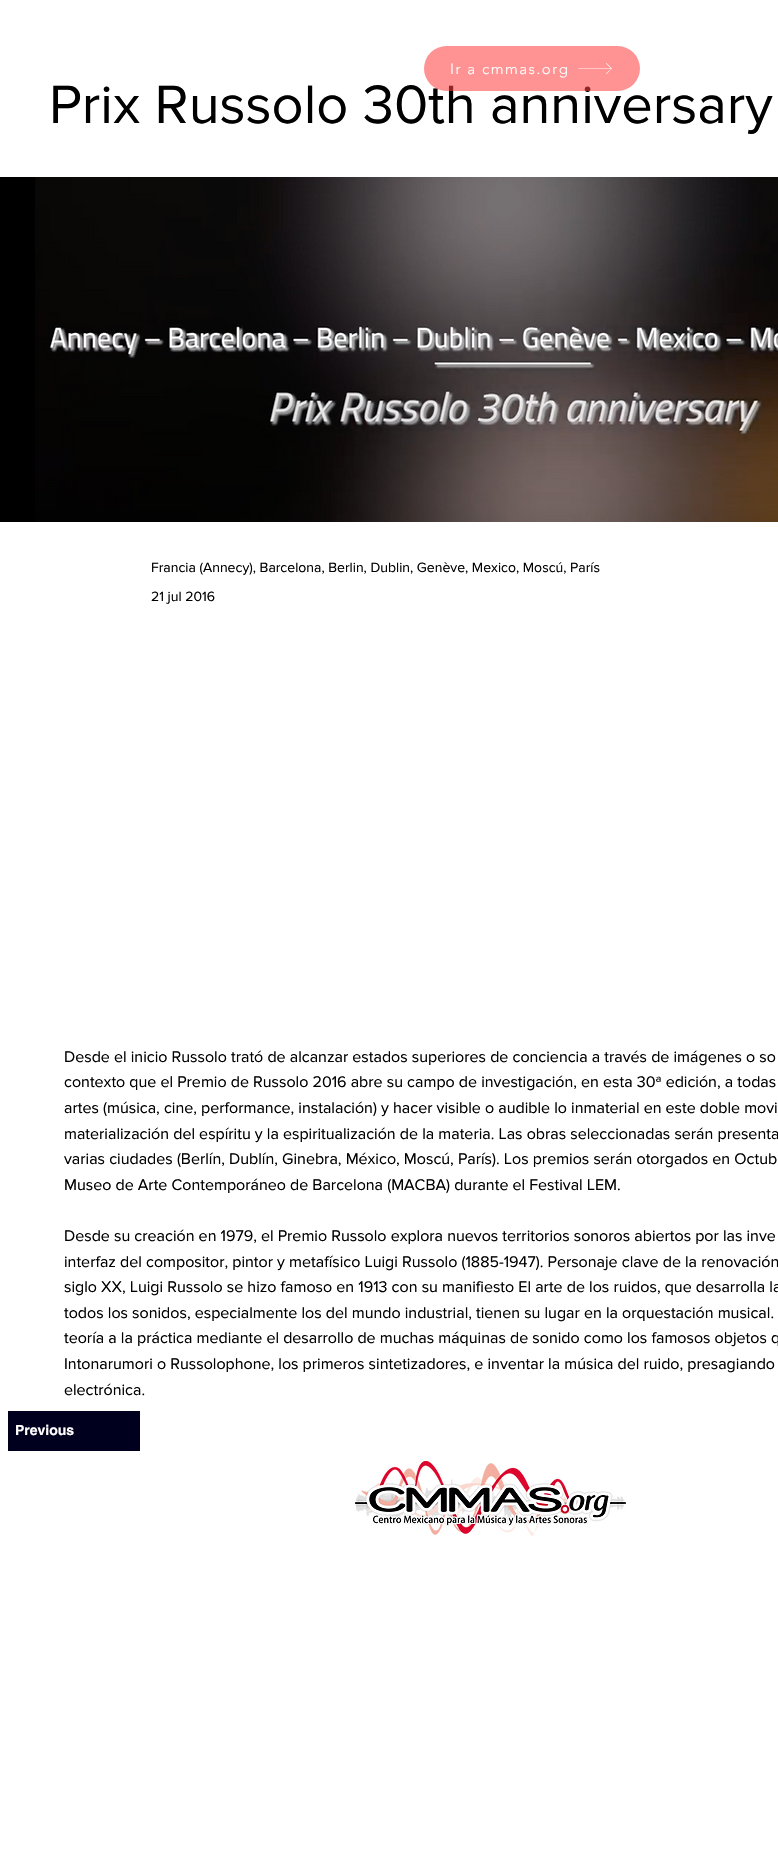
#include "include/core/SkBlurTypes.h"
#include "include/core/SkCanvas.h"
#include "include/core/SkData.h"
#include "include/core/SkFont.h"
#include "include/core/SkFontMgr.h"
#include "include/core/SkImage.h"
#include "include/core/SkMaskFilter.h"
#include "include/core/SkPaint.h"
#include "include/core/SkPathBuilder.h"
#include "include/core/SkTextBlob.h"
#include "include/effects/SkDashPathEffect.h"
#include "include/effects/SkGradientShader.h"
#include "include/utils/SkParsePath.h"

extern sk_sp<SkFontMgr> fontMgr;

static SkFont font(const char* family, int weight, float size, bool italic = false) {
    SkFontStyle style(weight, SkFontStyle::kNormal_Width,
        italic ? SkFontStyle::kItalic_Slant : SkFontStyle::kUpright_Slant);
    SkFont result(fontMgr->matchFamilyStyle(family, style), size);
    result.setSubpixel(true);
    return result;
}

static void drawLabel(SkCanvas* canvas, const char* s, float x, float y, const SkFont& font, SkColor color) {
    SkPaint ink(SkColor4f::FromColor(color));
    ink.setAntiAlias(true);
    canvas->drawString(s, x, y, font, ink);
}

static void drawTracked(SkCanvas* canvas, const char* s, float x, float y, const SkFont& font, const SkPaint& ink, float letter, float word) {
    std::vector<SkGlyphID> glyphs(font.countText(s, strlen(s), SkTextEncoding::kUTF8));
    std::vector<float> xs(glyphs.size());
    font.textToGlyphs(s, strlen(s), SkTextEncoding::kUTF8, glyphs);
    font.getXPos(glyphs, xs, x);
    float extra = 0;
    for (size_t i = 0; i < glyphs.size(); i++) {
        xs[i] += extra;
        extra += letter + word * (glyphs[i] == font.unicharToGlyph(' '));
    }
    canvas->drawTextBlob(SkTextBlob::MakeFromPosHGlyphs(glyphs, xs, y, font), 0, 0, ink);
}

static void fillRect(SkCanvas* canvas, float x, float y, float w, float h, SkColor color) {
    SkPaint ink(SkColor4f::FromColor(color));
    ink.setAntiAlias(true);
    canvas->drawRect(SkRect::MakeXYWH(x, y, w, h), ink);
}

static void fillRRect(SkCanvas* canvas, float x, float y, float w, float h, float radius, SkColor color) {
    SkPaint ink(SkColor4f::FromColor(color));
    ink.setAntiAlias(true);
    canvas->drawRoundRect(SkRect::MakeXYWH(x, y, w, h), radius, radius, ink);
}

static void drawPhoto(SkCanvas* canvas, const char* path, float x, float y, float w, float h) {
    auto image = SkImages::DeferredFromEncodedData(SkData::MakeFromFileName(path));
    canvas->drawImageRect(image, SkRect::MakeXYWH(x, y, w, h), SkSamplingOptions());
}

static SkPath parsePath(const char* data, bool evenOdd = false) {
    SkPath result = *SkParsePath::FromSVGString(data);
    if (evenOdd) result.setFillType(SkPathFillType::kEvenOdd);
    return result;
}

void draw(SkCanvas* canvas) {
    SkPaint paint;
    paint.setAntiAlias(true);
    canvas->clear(0xFFFFFFFF);
    SkFont font1 = font("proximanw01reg", 400, 56);
    drawLabel(canvas, "Prix Russolo 30th anniversary", 49, 123, font1, 0xFF000000);
    fillRRect(canvas, 424, 46, 216, 45, 22.5f, 0x91FF4040);
    SkFont font2 = font("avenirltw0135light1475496", 300, 15);
    paint.setColor(0xFFFFFFFF);
    drawTracked(canvas, "Ir a cmmas.org", 450, 74, font2, paint, 1.5f, 0);
    canvas->drawPath(parsePath("M606.5 63L606 63.5L611 68.5H578.5V69H611L606 73.5L606.5 74L612 68.5Z"), paint);
    drawPhoto(canvas, "assets/img1.png", 0, 177, 778, 345);
    SkFont font3 = font("proximanw01reg", 400, 14);
    drawLabel(canvas, "Francia (Annecy), Barcelona, Berlin, Dublin, Genève, Mexico, Moscú, París", 151, 572, font3, 0xFF000000);
    drawLabel(canvas, "21 jul 2016", 151, 601, font3, 0xFF000000);
    SkFont font4 = font("proximanw01reg", 400, 16);
    drawLabel(canvas, "Desde el inicio Russolo trató de alcanzar estados superiores de conciencia a través de imágenes o so", 64, 1062, font4, 0xFF000000);
    drawLabel(canvas, "contexto que el Premio de Russolo 2016 abre su campo de investigación, en esta 30ª edición, a todas", 64, 1087, font4, 0xFF000000);
    drawLabel(canvas, "artes (música, cine, performance, instalación) y hacer visible o audible lo inmaterial en este doble movi", 64, 1113, font4, 0xFF000000);
    drawLabel(canvas, "materialización del espíritu y la espiritualización de la materia. Las obras seleccionadas serán presenta", 64, 1139, font4, 0xFF000000);
    drawLabel(canvas, "varias ciudades (Berlín, Dublín, Ginebra, México, Moscú, París). Los premios serán otorgados en Octub", 64, 1164, font4, 0xFF000000);
    drawLabel(canvas, "Museo de Arte Contemporáneo de Barcelona (MACBA) durante el Festival LEM.", 64, 1190, font4, 0xFF000000);
    drawLabel(canvas, "Desde su creación en 1979, el Premio Russolo explora nuevos territorios sonoros abiertos por las inve", 64, 1241, font4, 0xFF000000);
    drawLabel(canvas, "interfaz del compositor, pintor y metafísico Luigi Russolo (1885-1947). Personaje clave de la renovación", 64, 1267, font4, 0xFF000000);
    drawLabel(canvas, "siglo XX, Luigi Russolo se hizo famoso en 1913 con su manifiesto El arte de los ruidos, que desarrolla la", 64, 1292, font4, 0xFF000000);
    drawLabel(canvas, "todos los sonidos, especialmente los del mundo industrial, tienen su lugar en la orquestación musical.", 64, 1318, font4, 0xFF000000);
    drawLabel(canvas, "teoría a la práctica mediante el desarrollo de muchas máquinas de sonido como los famosos objetos q", 64, 1343, font4, 0xFF000000);
    drawLabel(canvas, "Intonarumori o Russolophone, los primeros sintetizadores, e inventar la música del ruido, presagiando", 64, 1369, font4, 0xFF000000);
    drawLabel(canvas, "electrónica.", 64, 1395, font4, 0xFF000000);
    fillRect(canvas, 8, 1411, 132, 40, 0xFF00001E);
    SkFont font5 = font("helvetica", 700, 14);
    drawLabel(canvas, "Previous", 15, 1435, font5, 0xFFFFFFFF);
    drawPhoto(canvas, "assets/img2.png", 355, 1461, 271, 75);
}
